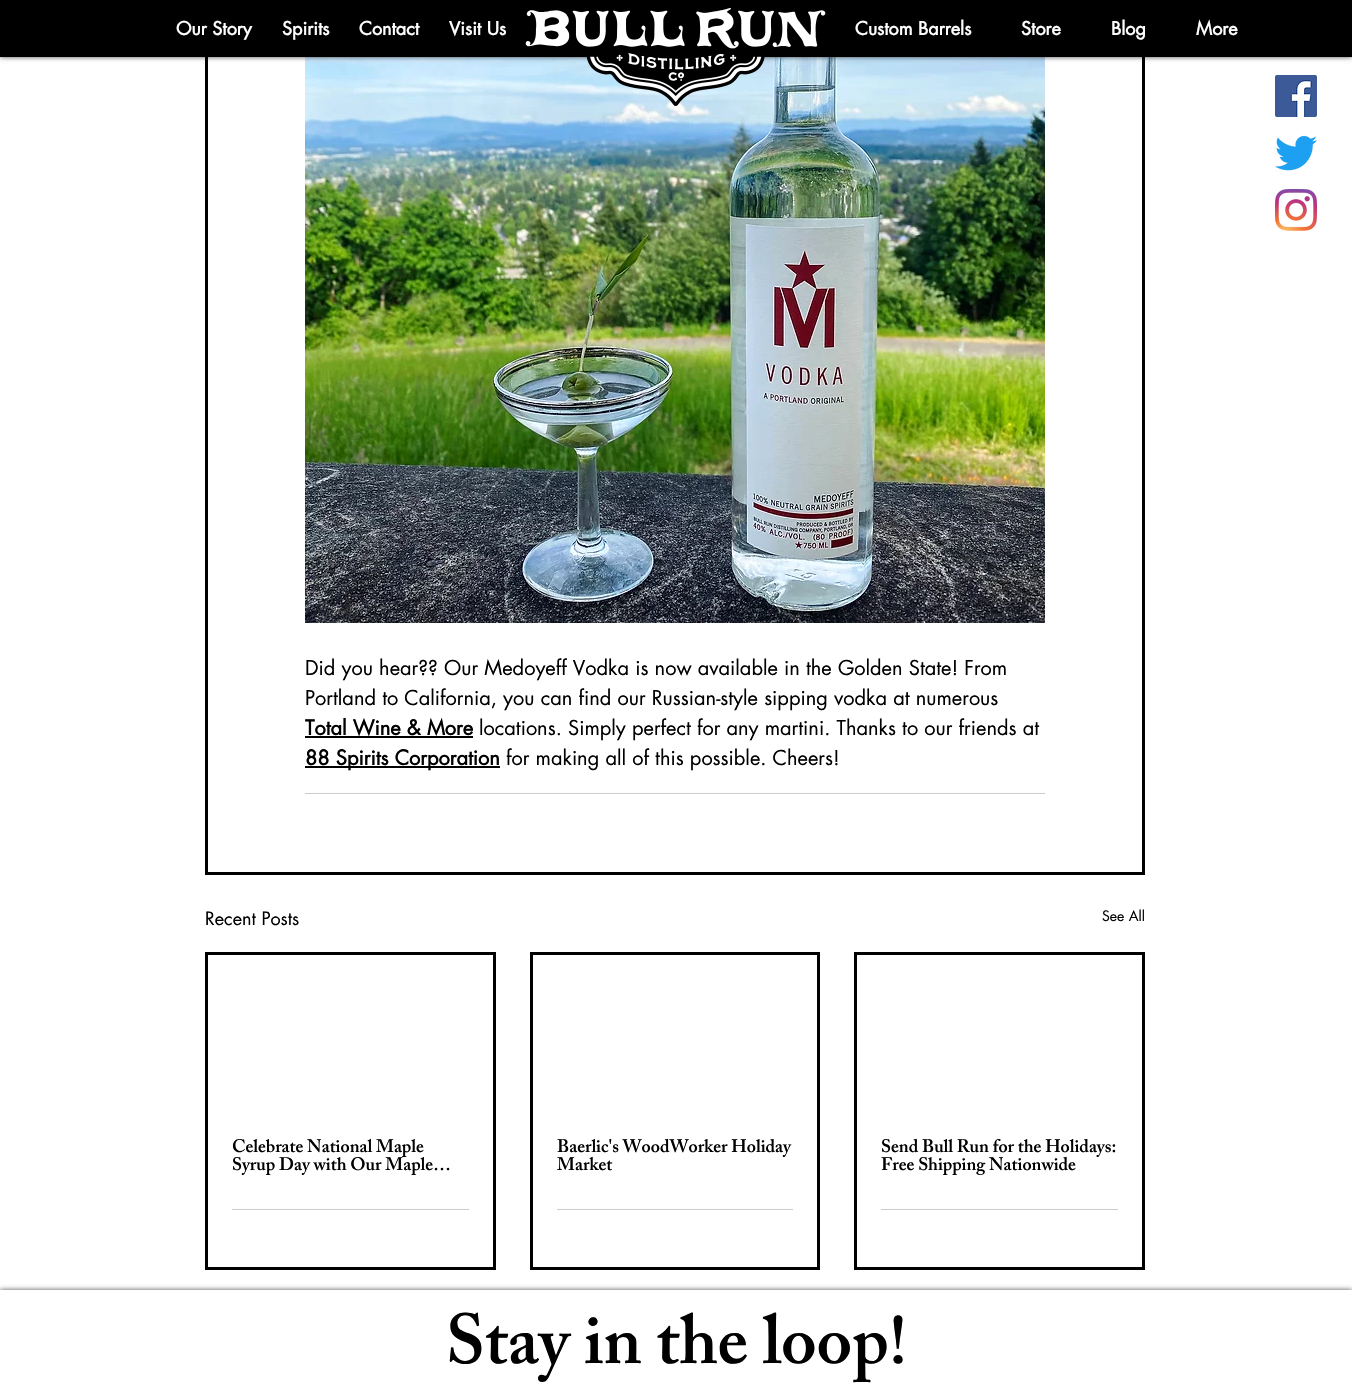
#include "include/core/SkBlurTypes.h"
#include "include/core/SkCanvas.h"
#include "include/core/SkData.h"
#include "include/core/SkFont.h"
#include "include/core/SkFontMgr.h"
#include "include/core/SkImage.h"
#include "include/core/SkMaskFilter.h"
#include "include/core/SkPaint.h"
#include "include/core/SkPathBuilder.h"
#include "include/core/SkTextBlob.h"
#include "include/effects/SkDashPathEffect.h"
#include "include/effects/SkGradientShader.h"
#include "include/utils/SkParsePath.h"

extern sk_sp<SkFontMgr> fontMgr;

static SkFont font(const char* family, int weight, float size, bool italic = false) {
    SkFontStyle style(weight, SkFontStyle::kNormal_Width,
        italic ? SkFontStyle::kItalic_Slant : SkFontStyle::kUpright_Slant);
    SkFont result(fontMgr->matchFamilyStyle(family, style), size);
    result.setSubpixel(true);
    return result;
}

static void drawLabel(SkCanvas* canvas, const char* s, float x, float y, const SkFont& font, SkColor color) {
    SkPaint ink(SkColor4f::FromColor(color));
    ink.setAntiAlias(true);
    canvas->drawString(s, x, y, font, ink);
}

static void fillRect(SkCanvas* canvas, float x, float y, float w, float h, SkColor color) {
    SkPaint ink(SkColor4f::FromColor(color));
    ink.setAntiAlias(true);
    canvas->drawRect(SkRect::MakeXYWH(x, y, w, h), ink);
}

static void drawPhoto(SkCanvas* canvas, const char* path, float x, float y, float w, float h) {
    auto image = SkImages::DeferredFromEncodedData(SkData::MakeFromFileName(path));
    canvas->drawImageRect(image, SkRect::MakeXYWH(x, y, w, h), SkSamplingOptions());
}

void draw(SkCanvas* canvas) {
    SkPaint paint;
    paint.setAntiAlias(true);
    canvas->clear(0xFFFFFFFF);
    paint.setStroke(true);
    paint.setStrokeWidth(3);
    paint.setColor(0xFF000000);
    canvas->drawRect(SkRect::MakeXYWH(206.5f, -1.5f, 937, 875), paint);
    drawPhoto(canvas, "assets/img5.png", 305, 57, 740, 566);
    paint.setStroke(false);
    paint.setColor(0xB3000000);
    paint.setMaskFilter(SkMaskFilter::MakeBlur(kNormal_SkBlurStyle, 2.5f));
    canvas->drawRect(SkRect::MakeXYWH(0, 0, 1352, 57), paint);
    paint.setMaskFilter(nullptr);
    fillRect(canvas, 0, 0, 1352, 57, 0xFF000000);
    SkFont font1 = font("futura", 700, 18);
    drawLabel(canvas, "Our Story", 176, 35, font1, 0xFFFFFFFF);
    drawLabel(canvas, "Spirits", 282, 35, font1, 0xFFFFFFFF);
    drawLabel(canvas, "Contact", 359, 35, font1, 0xFFFFFFFF);
    drawLabel(canvas, "Visit Us", 449, 35, font1, 0xFFFFFFFF);
    drawPhoto(canvas, "assets/img1.png", 525, 8, 301, 98);
    drawLabel(canvas, "Custom Barrels", 855, 35, font1, 0xFFFFFFFF);
    drawLabel(canvas, "Store", 1021, 35, font1, 0xFFFFFFFF);
    drawLabel(canvas, "Blog", 1111, 35, font1, 0xFFFFFFFF);
    drawLabel(canvas, "More", 1196, 35, font1, 0xFFFFFFFF);
    drawPhoto(canvas, "assets/img2.png", 1275, 75, 42, 42);
    drawPhoto(canvas, "assets/img3.png", 1275, 135, 42, 36);
    drawPhoto(canvas, "assets/img4.png", 1275, 189, 42, 42);
    SkFont font2 = font("futura", 400, 20);
    drawLabel(canvas, "Did you hear?\077 Our Medoyeff Vodka is now available in the Golden State! From", 305, 675, font2, 0xFF000000);
    drawLabel(canvas, "Portland to California, you can find our Russian-style sipping vodka at numerous", 305, 705, font2, 0xFF000000);
    SkFont font3 = font("futura", 700, 20);
    drawLabel(canvas, "Total Wine & More", 305, 735, font3, 0xFF000000);
    fillRect(canvas, 305, 736, 168, 2, 0xFF000000);
    drawLabel(canvas, "locations. Simply perfect for any martini. Thanks to our friends at", 479, 735, font2, 0xFF000000);
    fillRect(canvas, 305, 766, 195, 2, 0xFF000000);
    drawLabel(canvas, "88 Spirits Corporation", 305, 765, font3, 0xFF000000);
    drawLabel(canvas, "for making all of this possible. Cheers!", 506, 765, font2, 0xFF000000);
    fillRect(canvas, 305, 793, 740, 1, 0xFFCCCCCC);
    SkFont font4 = font("futura", 400, 18);
    drawLabel(canvas, "Recent Posts", 205, 925, font4, 0xFF000000);
    SkFont font5 = font("futura", 400, 14);
    drawLabel(canvas, "See All", 1102, 921, font5, 0xFF000000);
    paint.setStroke(true);
    paint.setColor(0xFF000000);
    canvas->drawRect(SkRect::MakeXYWH(206.5f, 953.5f, 288, 315), paint);
    SkFont font6 = font("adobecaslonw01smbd", 600, 18);
    drawLabel(canvas, "Celebrate National Maple", 232, 1152, font6, 0xFF000000);
    drawLabel(canvas, "Syrup Day with Our Maple…", 232, 1170, font6, 0xFF000000);
    fillRect(canvas, 232, 1209, 237, 1, 0xFFCCCCCC);
    canvas->drawRect(SkRect::MakeXYWH(531.5f, 953.5f, 287, 315), paint);
    drawLabel(canvas, "Baerlic's WoodWorker Holiday", 557, 1152, font6, 0xFF000000);
    drawLabel(canvas, "Market", 557, 1170, font6, 0xFF000000);
    fillRect(canvas, 557, 1209, 236, 1, 0xFFCCCCCC);
    canvas->drawRect(SkRect::MakeXYWH(855.5f, 953.5f, 288, 315), paint);
    drawLabel(canvas, "Send Bull Run for the Holidays:", 881, 1152, font6, 0xFF000000);
    drawLabel(canvas, "Free Shipping Nationwide", 881, 1170, font6, 0xFF000000);
    fillRect(canvas, 881, 1209, 237, 1, 0xFFCCCCCC);
    paint.setStroke(false);
    paint.setColor(0xB3000000);
    paint.setMaskFilter(SkMaskFilter::MakeBlur(kNormal_SkBlurStyle, 2.5f));
    canvas->drawRect(SkRect::MakeXYWH(0, 1290, 1352, 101), paint);
    paint.setMaskFilter(nullptr);
    fillRect(canvas, 0, 1290, 1352, 93, 0xFFFFFFFF);
    SkFont font7 = font("adobecaslonw01smbd", 600, 70);
    drawLabel(canvas, "Stay in the loop!", 446, 1363, font7, 0xFF000000);
}
